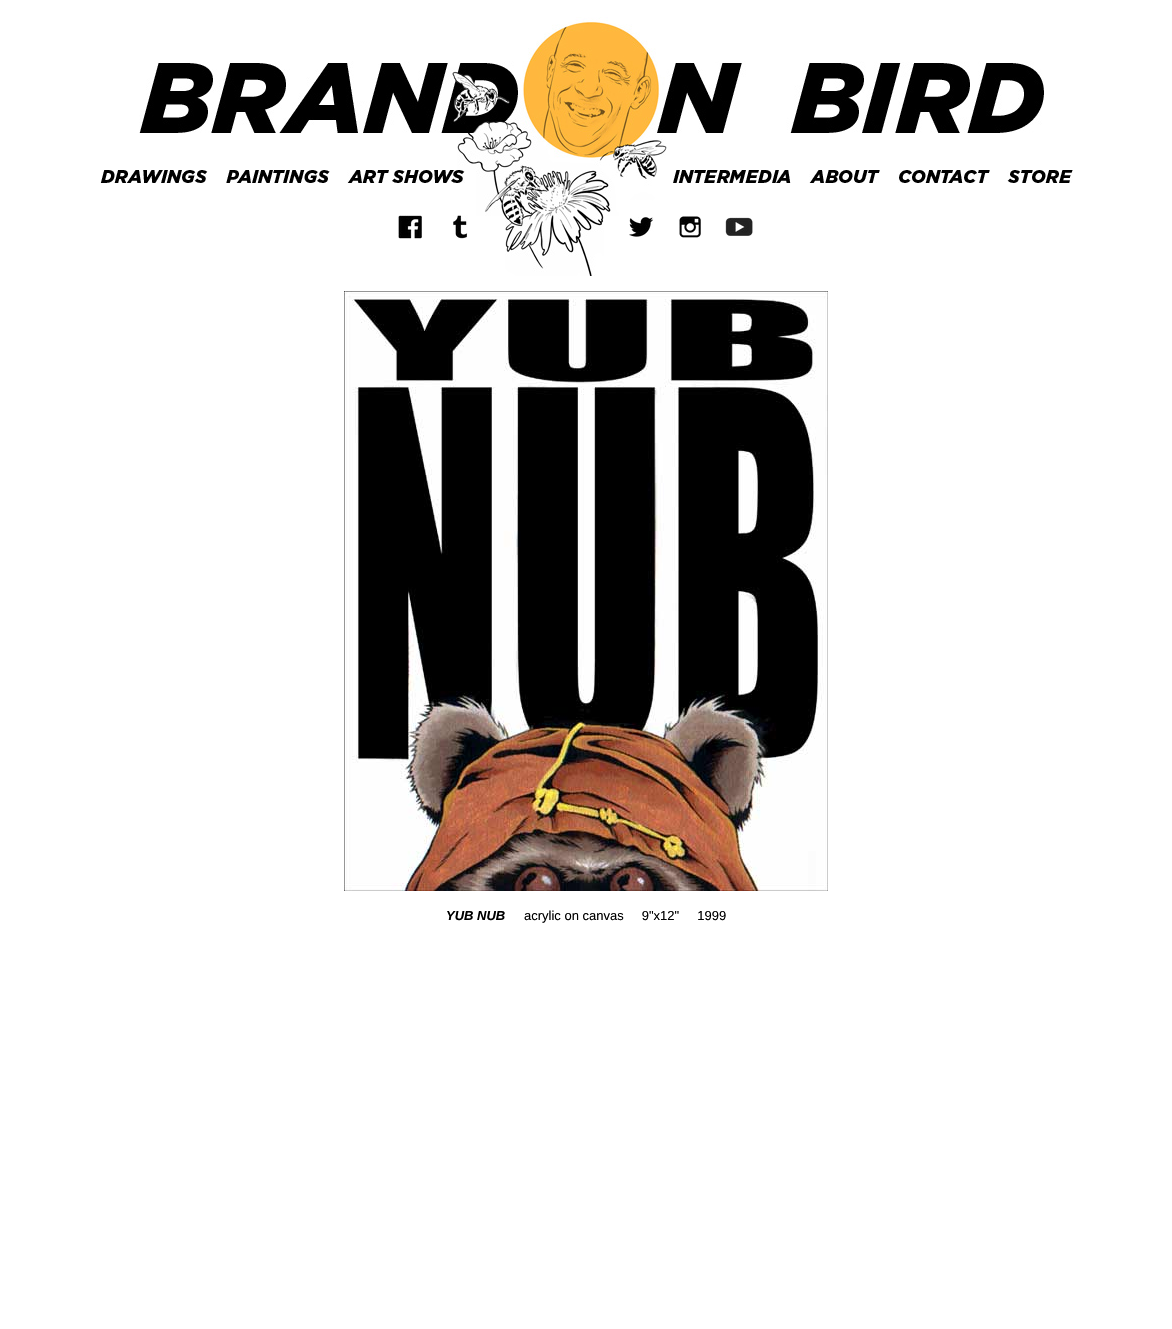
#include "include/core/SkBlurTypes.h"
#include "include/core/SkCanvas.h"
#include "include/core/SkData.h"
#include "include/core/SkFont.h"
#include "include/core/SkFontMgr.h"
#include "include/core/SkImage.h"
#include "include/core/SkMaskFilter.h"
#include "include/core/SkPaint.h"
#include "include/core/SkPathBuilder.h"
#include "include/core/SkTextBlob.h"
#include "include/effects/SkDashPathEffect.h"
#include "include/effects/SkGradientShader.h"
#include "include/utils/SkParsePath.h"

extern sk_sp<SkFontMgr> fontMgr;

static SkFont font(const char* family, int weight, float size, bool italic = false) {
    SkFontStyle style(weight, SkFontStyle::kNormal_Width,
        italic ? SkFontStyle::kItalic_Slant : SkFontStyle::kUpright_Slant);
    SkFont result(fontMgr->matchFamilyStyle(family, style), size);
    result.setSubpixel(true);
    return result;
}

static void drawLabel(SkCanvas* canvas, const char* s, float x, float y, const SkFont& font, SkColor color) {
    SkPaint ink(SkColor4f::FromColor(color));
    ink.setAntiAlias(true);
    canvas->drawString(s, x, y, font, ink);
}

static void fillRect(SkCanvas* canvas, float x, float y, float w, float h, SkColor color) {
    SkPaint ink(SkColor4f::FromColor(color));
    ink.setAntiAlias(true);
    canvas->drawRect(SkRect::MakeXYWH(x, y, w, h), ink);
}

static void drawPhoto(SkCanvas* canvas, const char* path, float x, float y, float w, float h) {
    auto image = SkImages::DeferredFromEncodedData(SkData::MakeFromFileName(path));
    canvas->drawImageRect(image, SkRect::MakeXYWH(x, y, w, h), SkSamplingOptions());
}

void draw(SkCanvas* canvas) {
    SkPaint paint;
    paint.setAntiAlias(true);
    canvas->clear(0xFFFFFFFF);
    drawPhoto(canvas, "assets/img1.png", 528, 17, 128, 44);
    drawPhoto(canvas, "assets/img2.png", 139, 61, 905, 73);
    drawPhoto(canvas, "assets/img3.png", 457, 134, 210, 36);
    drawPhoto(canvas, "assets/img4.png", 101, 170, 106, 13);
    fillRect(canvas, 207, 171, 1, 1, 0xFFF2F2F2);
    drawPhoto(canvas, "assets/img5.png", 226, 170, 104, 13);
    drawPhoto(canvas, "assets/img6.png", 347, 170, 118, 13);
    drawPhoto(canvas, "assets/img7.png", 476, 170, 181, 46);
    drawPhoto(canvas, "assets/img8.png", 673, 170, 118, 13);
    drawPhoto(canvas, "assets/img9.png", 809, 170, 71, 13);
    drawPhoto(canvas, "assets/img10.png", 898, 170, 92, 13);
    drawPhoto(canvas, "assets/img11.png", 1007, 170, 66, 13);
    fillRect(canvas, 100, 182, 1, 1, 0xFFF4F4F4);
    drawPhoto(canvas, "assets/img12.png", 398, 215, 24, 24);
    drawPhoto(canvas, "assets/img13.png", 453, 215, 15, 24);
    drawPhoto(canvas, "assets/img14.png", 505, 216, 99, 60);
    drawPhoto(canvas, "assets/img15.png", 629, 217, 25, 20);
    drawPhoto(canvas, "assets/img16.png", 679, 216, 22, 22);
    drawPhoto(canvas, "assets/img17.png", 725, 217, 28, 19);
    drawPhoto(canvas, "assets/img18.png", 344, 291, 484, 600);
    SkFont font1 = font("Liberation Sans", 700, 13, true);
    drawLabel(canvas, "YUB NUB", 446, 920, font1, 0xFF000000);
    SkFont font2 = font("Liberation Sans", 400, 13);
    drawLabel(canvas, "acrylic on canvas     9\"x12\"     1999", 524, 920, font2, 0xFF000000);
}
